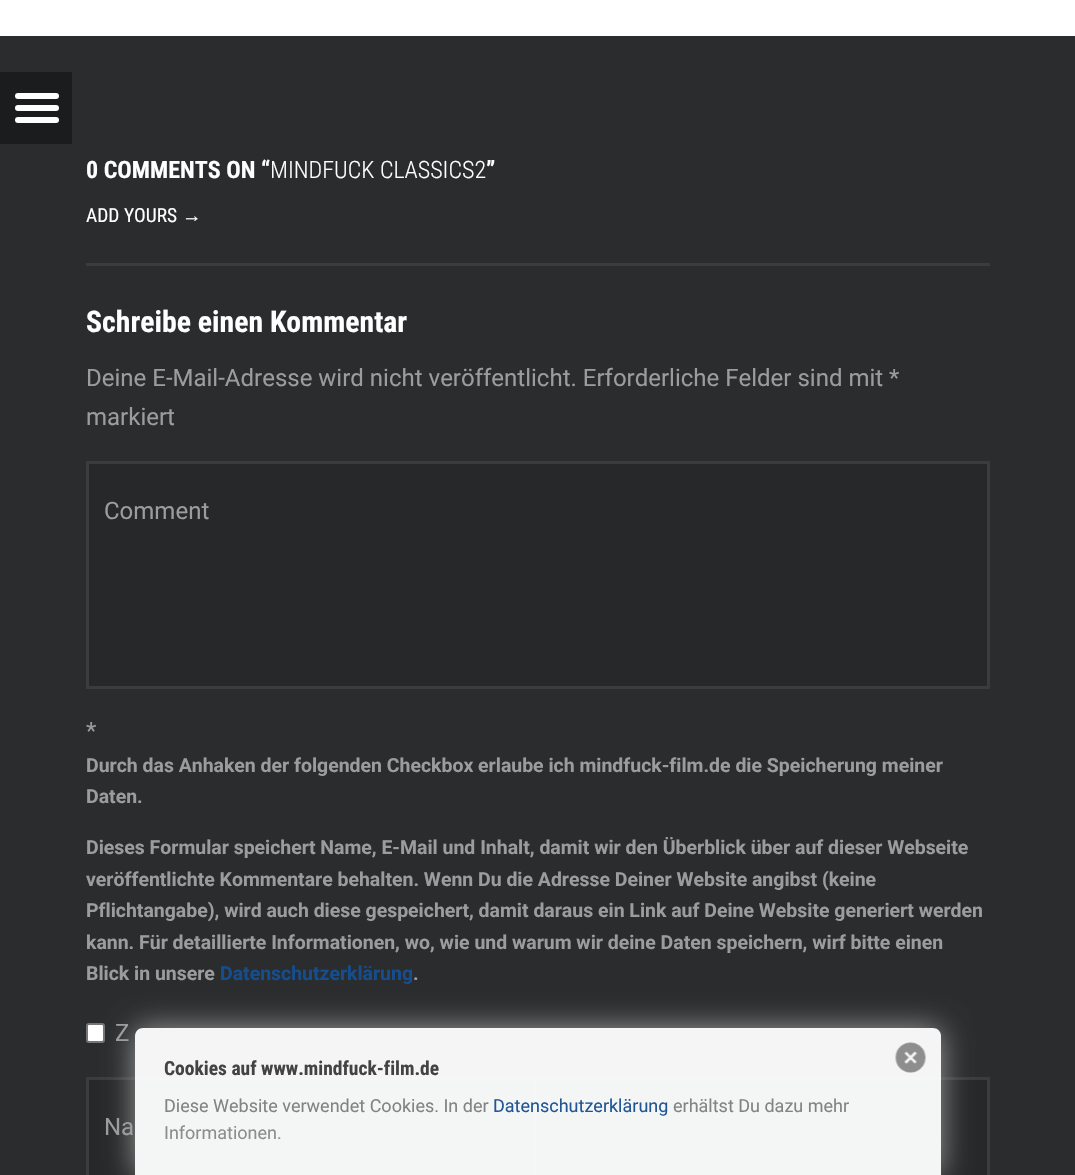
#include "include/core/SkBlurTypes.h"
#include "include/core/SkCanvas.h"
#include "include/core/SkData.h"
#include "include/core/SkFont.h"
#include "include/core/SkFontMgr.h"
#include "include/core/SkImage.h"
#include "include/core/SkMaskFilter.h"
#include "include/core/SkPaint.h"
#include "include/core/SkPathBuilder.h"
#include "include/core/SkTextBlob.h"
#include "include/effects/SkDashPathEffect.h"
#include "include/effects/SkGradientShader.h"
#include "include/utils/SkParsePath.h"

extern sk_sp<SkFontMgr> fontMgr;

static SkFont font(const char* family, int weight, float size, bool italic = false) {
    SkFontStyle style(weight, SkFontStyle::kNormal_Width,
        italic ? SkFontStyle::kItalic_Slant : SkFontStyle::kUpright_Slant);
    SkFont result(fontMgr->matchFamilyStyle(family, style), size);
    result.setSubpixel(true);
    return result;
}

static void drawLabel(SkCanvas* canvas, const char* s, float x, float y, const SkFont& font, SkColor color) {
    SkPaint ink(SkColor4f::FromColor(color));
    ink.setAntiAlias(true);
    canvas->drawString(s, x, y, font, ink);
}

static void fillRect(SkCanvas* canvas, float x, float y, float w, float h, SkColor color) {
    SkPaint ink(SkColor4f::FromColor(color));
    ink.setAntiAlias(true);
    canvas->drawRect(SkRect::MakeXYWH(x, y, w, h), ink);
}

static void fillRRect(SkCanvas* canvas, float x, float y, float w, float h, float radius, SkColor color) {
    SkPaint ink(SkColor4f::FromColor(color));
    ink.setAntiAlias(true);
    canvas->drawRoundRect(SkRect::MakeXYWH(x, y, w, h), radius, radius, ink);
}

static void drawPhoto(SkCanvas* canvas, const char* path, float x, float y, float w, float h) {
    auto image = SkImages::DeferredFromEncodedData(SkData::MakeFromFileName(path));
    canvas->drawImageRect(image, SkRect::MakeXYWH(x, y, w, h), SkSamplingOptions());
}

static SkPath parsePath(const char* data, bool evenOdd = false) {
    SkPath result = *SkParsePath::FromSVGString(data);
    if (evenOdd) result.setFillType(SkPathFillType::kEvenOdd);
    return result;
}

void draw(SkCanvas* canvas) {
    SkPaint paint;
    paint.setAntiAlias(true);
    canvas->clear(0xFFFFFFFF);
    fillRect(canvas, 0, 36, 1075, 1139, 0xFF2A2C2E);
    fillRect(canvas, 0, 72, 72, 72, 0xFF1A1C1E);
    fillRRect(canvas, 15, 93, 44, 6, 3, 0xFFFFFFFF);
    fillRRect(canvas, 15, 105, 44, 6, 3, 0xFFFFFFFF);
    fillRRect(canvas, 15, 117, 44, 6, 3, 0xFFFFFFFF);
    SkFont font1 = font("Roboto Condensed", 700, 24);
    drawLabel(canvas, "0 COMMENTS ON “", 86, 178, font1, 0xFFFFFFFF);
    SkFont font2 = font("Roboto Condensed", 300, 24);
    drawLabel(canvas, "MINDFUCK CLASSICS2", 270, 178, font2, 0xFFFFFFFF);
    drawLabel(canvas, "”", 486, 178, font1, 0xFFFFFFFF);
    SkFont font3 = font("Roboto Condensed", 400, 19.45f);
    drawLabel(canvas, "ADD YOURS", 86, 222, font3, 0xFFFFFFFF);
    SkFont font4 = font("Liberation Sans", 400, 19.45f);
    drawLabel(canvas, "→", 182, 222, font4, 0xFFFFFFFF);
    fillRect(canvas, 86, 263, 904, 3, 0xFF3A3C3E);
    SkFont font5 = font("Roboto Condensed", 700, 29.75f);
    drawLabel(canvas, "Schreibe einen Kommentar", 86, 332, font5, 0xFFFFFFFF);
    SkFont font6 = font("Roboto", 400, 24);
    drawLabel(canvas, "Deine E-Mail-Adresse wird nicht veröffentlicht. Erforderliche Felder sind mit *", 86, 386, font6, 0xFF9A9C9E);
    drawLabel(canvas, "markiert", 86, 425, font6, 0xFF9A9C9E);
    paint.setColor(0xFF262829);
    canvas->drawRect(SkRect::MakeXYWH(87.5f, 462.5f, 901, 225), paint);
    paint.setStroke(true);
    paint.setStrokeWidth(3);
    paint.setColor(0xFF3A3C3E);
    canvas->drawRect(SkRect::MakeXYWH(87.5f, 462.5f, 901, 225), paint);
    drawLabel(canvas, "Comment", 104, 519, font6, 0xFF9A9C9E);
    drawLabel(canvas, "*", 86, 739, font6, 0xFF9A9C9E);
    SkFont font7 = font("Roboto", 700, 19.45f);
    drawLabel(canvas, "Durch das Anhaken der folgenden Checkbox erlaube ich mindfuck-film.de die Speicherung meiner", 86, 772, font7, 0xFF9A9C9E);
    drawLabel(canvas, "Daten.", 86, 803, font7, 0xFF9A9C9E);
    drawLabel(canvas, "Dieses Formular speichert Name, E-Mail und Inhalt, damit wir den Überblick über auf dieser Webseite", 86, 854, font7, 0xFF9A9C9E);
    drawLabel(canvas, "veröffentlichte Kommentare behalten. Wenn Du die Adresse Deiner Website angibst (keine", 86, 886, font7, 0xFF9A9C9E);
    drawLabel(canvas, "Pflichtangabe), wird auch diese gespeichert, damit daraus ein Link auf Deine Website generiert werden", 86, 917, font7, 0xFF9A9C9E);
    drawLabel(canvas, "kann. Für detaillierte Informationen, wo, wie und warum wir deine Daten speichern, wirf bitte einen", 86, 949, font7, 0xFF9A9C9E);
    drawLabel(canvas, "Blick in unsere", 86, 980, font7, 0xFF9A9C9E);
    drawLabel(canvas, "Datenschutzerklärung", 220, 980, font7, 0xFF154E8E);
    drawLabel(canvas, ".", 413, 980, font7, 0xFF9A9C9E);
    paint.setStroke(false);
    paint.setColor(0xFFFFFFFF);
    canvas->drawRoundRect(SkRect::MakeXYWH(87, 1024, 17, 18), 2, 2, paint);
    paint.setStroke(true);
    paint.setStrokeWidth(2);
    paint.setColor(0xFF767676);
    canvas->drawRoundRect(SkRect::MakeXYWH(87, 1024, 17, 18), 2, 2, paint);
    drawLabel(canvas, "Z", 115, 1041, font6, 0xFF9A9C9E);
    paint.setStroke(false);
    paint.setColor(0xFF262829);
    canvas->drawRect(SkRect::MakeXYWH(87.5f, 1078.5f, 448, 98), paint);
    paint.setStroke(true);
    paint.setStrokeWidth(3);
    paint.setColor(0xFF3A3C3E);
    canvas->drawRect(SkRect::MakeXYWH(87.5f, 1078.5f, 448, 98), paint);
    drawLabel(canvas, "Na", 104, 1135, font6, 0xFF9A9C9E);
    paint.setStroke(false);
    paint.setColor(0x1A000000);
    canvas->drawRect(SkRect::MakeXYWH(535.5f, 1078.5f, 453, 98), paint);
    paint.setStroke(true);
    paint.setColor(0xFF3A3C3E);
    canvas->drawRect(SkRect::MakeXYWH(535.5f, 1078.5f, 453, 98), paint);
    canvas->save();
    canvas->clipPath(parsePath("M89 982H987V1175H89ZM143 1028H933C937.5 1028 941 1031.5 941 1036V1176H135V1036C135 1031.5 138.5 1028 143 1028Z", true), true);
    paint.setStroke(false);
    paint.setColor(0xF2A1A1A1);
    paint.setMaskFilter(SkMaskFilter::MakeBlur(kNormal_SkBlurStyle, 15));
    canvas->drawRoundRect(SkRect::MakeXYWH(135, 1028, 806, 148), 8, 8, paint);
    paint.setMaskFilter(nullptr);
    canvas->restore();
    paint.setColor(0xF2FFFFFF);
    canvas->drawPath(parsePath("M143 1028H933C937.5 1028 941 1031.5 941 1036V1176H135V1036C135 1031.5 138.5 1028 143 1028Z"), paint);
    SkFont font8 = font("Roboto Condensed", 700, 19.5f);
    drawLabel(canvas, "Cookies auf www.mindfuck-film.de", 164, 1075, font8, 0xFF434343);
    drawPhoto(canvas, "assets/img1.png", 895, 1042, 31, 31);
    SkFont font9 = font("Roboto", 400, 18);
    drawLabel(canvas, "Diese Website verwendet Cookies. In der", 164, 1112, font9, 0xFF838383);
    drawLabel(canvas, "Datenschutzerklärung", 493, 1112, font9, 0xFF205693);
    drawLabel(canvas, "erhältst Du dazu mehr", 673, 1112, font9, 0xFF838383);
    drawLabel(canvas, "Informationen.", 164, 1139, font9, 0xFF8D8D8D);
}
